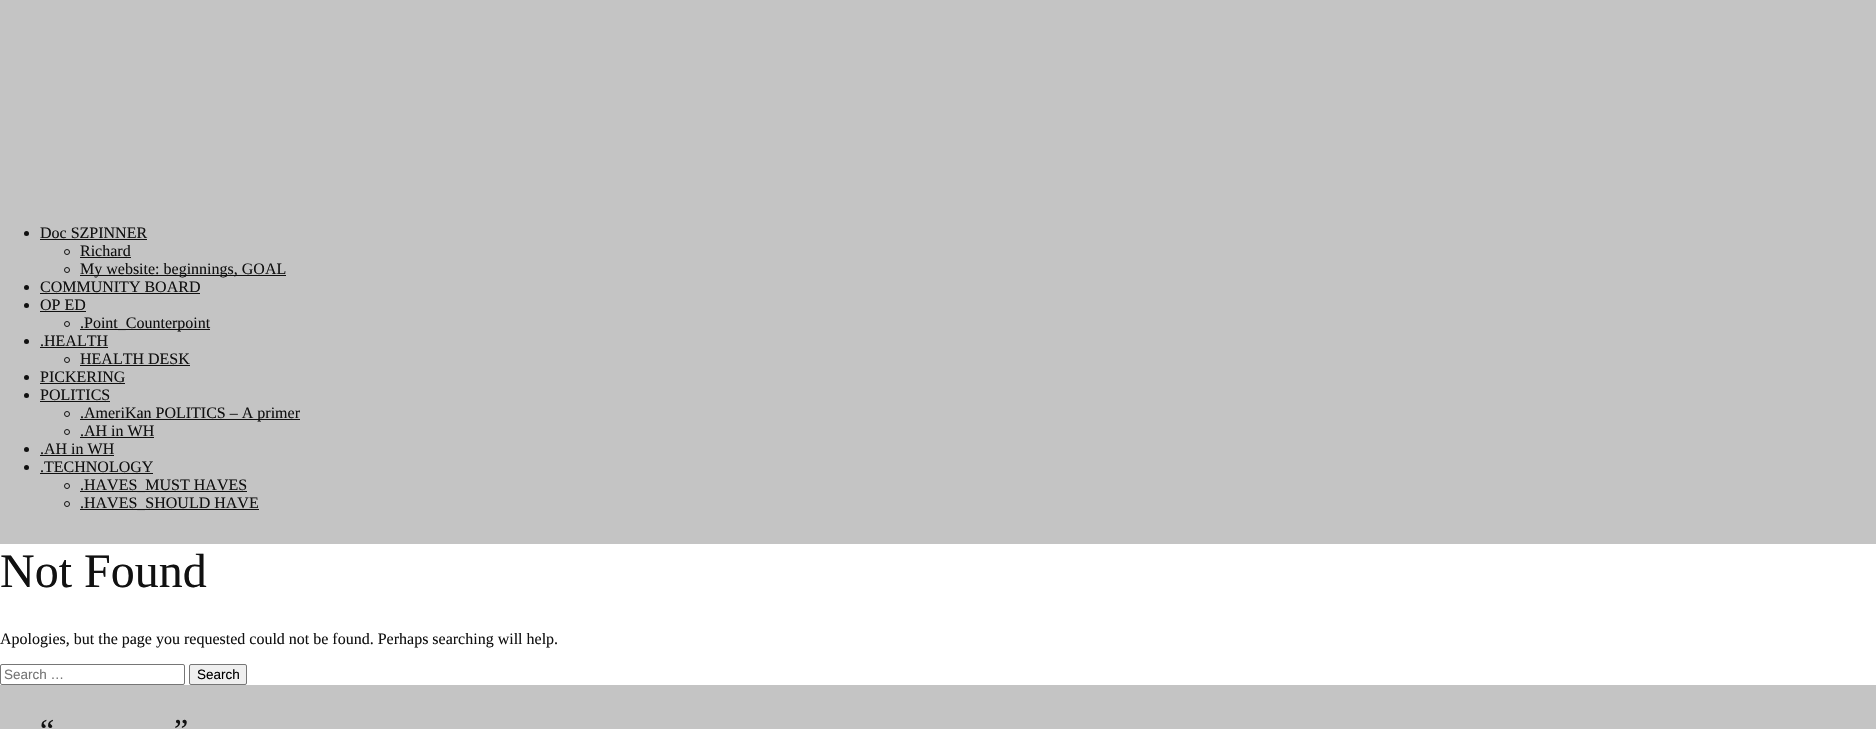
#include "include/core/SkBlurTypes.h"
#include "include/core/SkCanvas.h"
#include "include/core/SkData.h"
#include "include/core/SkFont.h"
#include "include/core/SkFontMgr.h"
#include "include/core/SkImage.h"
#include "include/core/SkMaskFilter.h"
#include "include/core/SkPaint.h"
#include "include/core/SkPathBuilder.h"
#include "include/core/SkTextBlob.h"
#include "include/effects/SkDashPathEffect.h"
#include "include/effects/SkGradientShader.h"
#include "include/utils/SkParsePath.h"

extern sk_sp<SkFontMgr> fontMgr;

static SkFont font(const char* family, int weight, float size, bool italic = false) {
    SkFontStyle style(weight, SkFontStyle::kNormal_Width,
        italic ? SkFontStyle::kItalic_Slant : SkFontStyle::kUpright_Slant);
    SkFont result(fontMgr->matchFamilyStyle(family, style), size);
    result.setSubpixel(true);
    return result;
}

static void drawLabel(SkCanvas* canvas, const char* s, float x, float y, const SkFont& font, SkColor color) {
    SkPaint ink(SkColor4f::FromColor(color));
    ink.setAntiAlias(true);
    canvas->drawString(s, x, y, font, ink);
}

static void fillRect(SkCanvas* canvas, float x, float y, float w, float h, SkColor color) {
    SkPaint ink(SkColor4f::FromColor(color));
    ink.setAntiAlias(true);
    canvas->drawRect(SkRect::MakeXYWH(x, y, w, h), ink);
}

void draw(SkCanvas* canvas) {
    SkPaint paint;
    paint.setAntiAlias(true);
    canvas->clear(0xFFC4C4C4);
    paint.setColor(0xFF111111);
    canvas->drawCircle(26.5f, 233.5f, 2.5f, paint);
    SkFont font1 = font("Liberation Serif", 400, 16);
    drawLabel(canvas, "Doc SZPINNER", 40, 238, font1, 0xFF111111);
    fillRect(canvas, 40, 239, 107, 1, 0xFF111111);
    paint.setStroke(true);
    paint.setStrokeWidth(1);
    canvas->drawCircle(67, 252, 2.5f, paint);
    drawLabel(canvas, "Richard", 80, 256, font1, 0xFF111111);
    fillRect(canvas, 80, 257, 51, 1, 0xFF111111);
    canvas->drawCircle(67, 270, 2.5f, paint);
    fillRect(canvas, 80, 275, 206, 1, 0xFF111111);
    drawLabel(canvas, "My website: beginnings, GOAL", 80, 274, font1, 0xFF111111);
    paint.setStroke(false);
    canvas->drawCircle(26.5f, 287.5f, 2.5f, paint);
    drawLabel(canvas, "COMMUNITY BOARD", 40, 292, font1, 0xFF111111);
    fillRect(canvas, 40, 293, 160, 1, 0xFF111111);
    canvas->drawCircle(26.5f, 305.5f, 2.5f, paint);
    drawLabel(canvas, "OP ED", 40, 310, font1, 0xFF111111);
    fillRect(canvas, 40, 311, 46, 1, 0xFF111111);
    paint.setStroke(true);
    canvas->drawCircle(67, 324, 2.5f, paint);
    fillRect(canvas, 80, 329, 130, 1, 0xFF111111);
    drawLabel(canvas, ".Point_Counterpoint", 80, 328, font1, 0xFF111111);
    paint.setStroke(false);
    canvas->drawCircle(26.5f, 341.5f, 2.5f, paint);
    drawLabel(canvas, ".HEALTH", 40, 346, font1, 0xFF111111);
    fillRect(canvas, 40, 347, 68, 1, 0xFF111111);
    paint.setStroke(true);
    canvas->drawCircle(67, 360, 2.5f, paint);
    drawLabel(canvas, "HEALTH DESK", 80, 364, font1, 0xFF111111);
    fillRect(canvas, 80, 365, 110, 1, 0xFF111111);
    paint.setStroke(false);
    canvas->drawCircle(26.5f, 377.5f, 2.5f, paint);
    drawLabel(canvas, "PICKERING", 40, 382, font1, 0xFF111111);
    fillRect(canvas, 40, 383, 85, 1, 0xFF111111);
    canvas->drawCircle(26.5f, 395.5f, 2.5f, paint);
    drawLabel(canvas, "POLITICS", 40, 400, font1, 0xFF111111);
    fillRect(canvas, 40, 401, 70, 1, 0xFF111111);
    paint.setStroke(true);
    canvas->drawCircle(67, 414, 2.5f, paint);
    fillRect(canvas, 80, 419, 220, 1, 0xFF111111);
    drawLabel(canvas, ".AmeriKan POLITICS – A primer", 80, 418, font1, 0xFF111111);
    canvas->drawCircle(67, 432, 2.5f, paint);
    drawLabel(canvas, ".AH in WH", 80, 436, font1, 0xFF111111);
    fillRect(canvas, 80, 437, 74, 1, 0xFF111111);
    paint.setStroke(false);
    canvas->drawCircle(26.5f, 449.5f, 2.5f, paint);
    drawLabel(canvas, ".AH in WH", 40, 454, font1, 0xFF111111);
    fillRect(canvas, 40, 455, 74, 1, 0xFF111111);
    canvas->drawCircle(26.5f, 467.5f, 2.5f, paint);
    drawLabel(canvas, ".TECHNOLOGY", 40, 472, font1, 0xFF111111);
    fillRect(canvas, 40, 473, 113, 1, 0xFF111111);
    paint.setStroke(true);
    canvas->drawCircle(67, 486, 2.5f, paint);
    fillRect(canvas, 80, 491, 167, 1, 0xFF111111);
    drawLabel(canvas, ".HAVES_MUST HAVES", 80, 490, font1, 0xFF111111);
    canvas->drawCircle(67, 504, 2.5f, paint);
    fillRect(canvas, 80, 509, 179, 1, 0xFF111111);
    drawLabel(canvas, ".HAVES_SHOULD HAVE", 80, 508, font1, 0xFF111111);
    fillRect(canvas, 0, 544, 1876, 141, 0xFFFFFFFF);
    SkFont font2 = font("Liberation Serif", 400, 48);
    drawLabel(canvas, "Not Found", 0, 587, font2, 0xFF111111);
    drawLabel(canvas, "Apologies, but the page you requested could not be found. Perhaps searching will help.", 0, 644, font1, 0xFF111111);
    paint.setColor(0xFF767676);
    canvas->drawRoundRect(SkRect::MakeXYWH(0.5f, 664.5f, 184, 20), 1.5f, 1.5f, paint);
    SkFont font3 = font("Liberation Sans", 400, 13.5f);
    drawLabel(canvas, "Search …", 4, 679, font3, 0xFF757575);
    paint.setStroke(false);
    paint.setColor(0xFFEFEFEF);
    canvas->drawRoundRect(SkRect::MakeXYWH(189.5f, 664.5f, 57, 20), 1.5f, 1.5f, paint);
    paint.setStroke(true);
    paint.setColor(0xFF767676);
    canvas->drawRoundRect(SkRect::MakeXYWH(189.5f, 664.5f, 57, 20), 1.5f, 1.5f, paint);
    drawLabel(canvas, "Search", 197, 679, font3, 0xFF000000);
    SkFont font4 = font("Liberation Serif", 400, 32);
    drawLabel(canvas, "“", 40, 741, font4, 0xFF111111);
    drawLabel(canvas, "”", 174, 741, font4, 0xFF111111);
}
